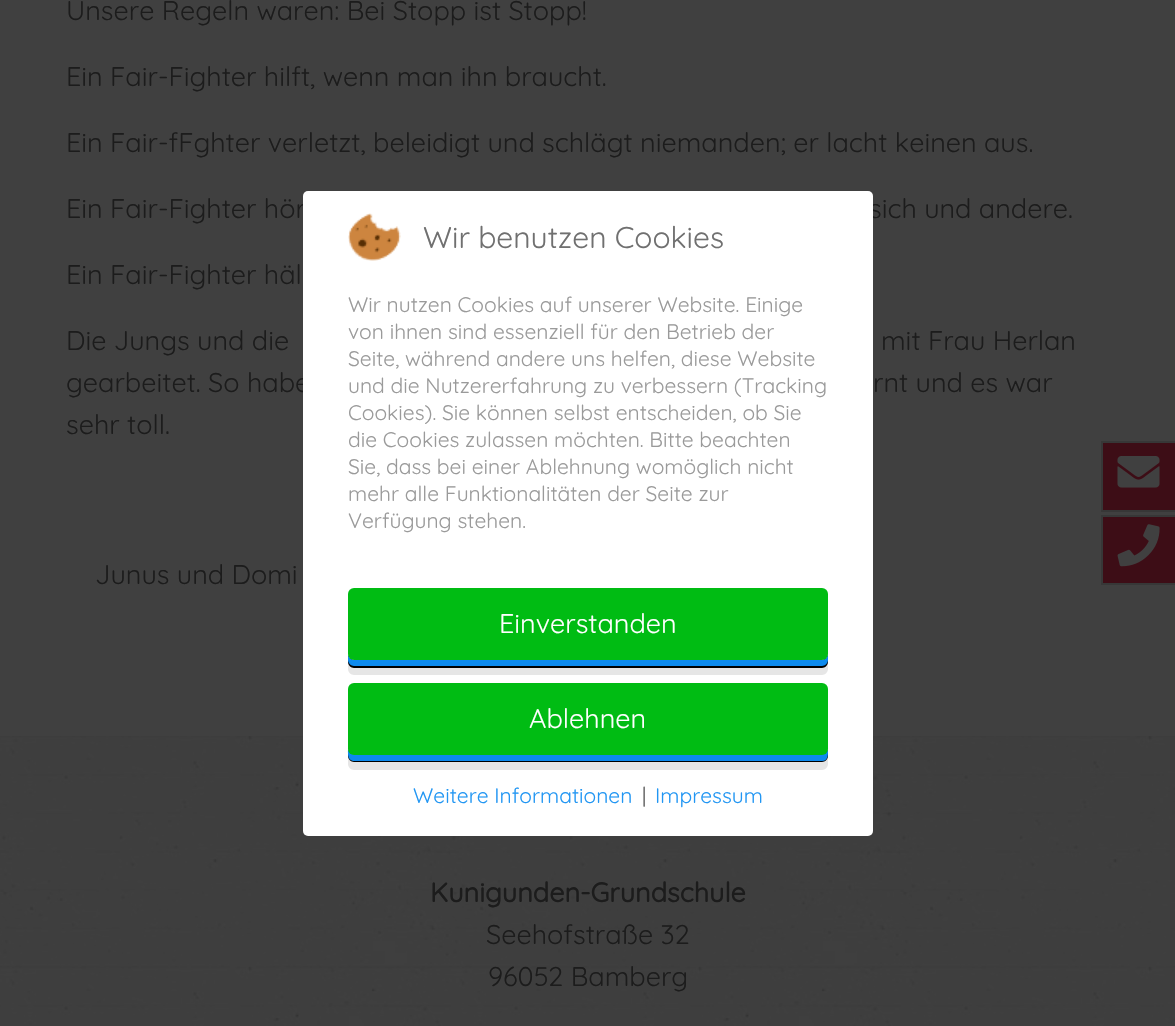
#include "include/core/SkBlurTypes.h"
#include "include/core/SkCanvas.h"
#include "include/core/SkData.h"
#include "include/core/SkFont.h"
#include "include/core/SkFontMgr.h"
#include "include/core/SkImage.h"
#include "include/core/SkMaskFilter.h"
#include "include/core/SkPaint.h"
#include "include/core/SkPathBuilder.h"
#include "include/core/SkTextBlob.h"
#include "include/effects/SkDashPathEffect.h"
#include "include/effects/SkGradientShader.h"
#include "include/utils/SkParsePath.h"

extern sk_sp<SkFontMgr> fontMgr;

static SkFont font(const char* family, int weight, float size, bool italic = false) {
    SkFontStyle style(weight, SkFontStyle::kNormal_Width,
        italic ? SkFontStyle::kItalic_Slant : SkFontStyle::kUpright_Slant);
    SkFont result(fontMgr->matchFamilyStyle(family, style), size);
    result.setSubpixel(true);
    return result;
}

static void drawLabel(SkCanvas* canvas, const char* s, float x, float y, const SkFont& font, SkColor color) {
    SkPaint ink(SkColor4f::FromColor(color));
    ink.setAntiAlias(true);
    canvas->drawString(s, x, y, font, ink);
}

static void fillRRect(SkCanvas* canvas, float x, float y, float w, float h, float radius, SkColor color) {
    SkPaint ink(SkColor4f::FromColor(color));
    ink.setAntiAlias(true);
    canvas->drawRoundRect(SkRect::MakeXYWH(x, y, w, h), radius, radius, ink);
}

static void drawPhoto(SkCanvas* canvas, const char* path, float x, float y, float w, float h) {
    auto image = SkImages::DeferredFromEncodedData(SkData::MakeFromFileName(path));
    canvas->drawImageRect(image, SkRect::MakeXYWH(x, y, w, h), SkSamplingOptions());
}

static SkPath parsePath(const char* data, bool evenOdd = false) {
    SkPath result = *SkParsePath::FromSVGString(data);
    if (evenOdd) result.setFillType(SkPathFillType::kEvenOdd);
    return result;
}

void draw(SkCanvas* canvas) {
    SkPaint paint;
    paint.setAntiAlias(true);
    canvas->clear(0xFF404040);
    SkFont font1 = font("Quicksand", 400, 27);
    drawLabel(canvas, "Unsere Regeln waren: Bei Stopp ist Stopp!", 66, 20, font1, 0xFF1C1C1C);
    drawLabel(canvas, "Ein Fair-Fighter hilft, wenn man ihn braucht.", 66, 86, font1, 0xFF1C1C1C);
    drawLabel(canvas, "Ein Fair-fFghter verletzt, beleidigt und schlägt niemanden; er lacht keinen aus.", 66, 152, font1, 0xFF1C1C1C);
    drawLabel(canvas, "Ein Fair-Fighter hör", 66, 218, font1, 0xFF1C1C1C);
    drawLabel(canvas, "sich und andere.", 869, 218, font1, 0xFF1C1C1C);
    drawLabel(canvas, "Ein Fair-Fighter häl", 66, 284, font1, 0xFF1C1C1C);
    drawLabel(canvas, "Die Jungs und die", 66, 350, font1, 0xFF1C1C1C);
    drawLabel(canvas, "mit Frau Herlan", 881, 350, font1, 0xFF1C1C1C);
    drawLabel(canvas, "gearbeitet. So habe", 66, 392, font1, 0xFF1C1C1C);
    drawLabel(canvas, "rnt und es war", 873, 392, font1, 0xFF1C1C1C);
    drawLabel(canvas, "sehr toll.", 66, 434, font1, 0xFF1C1C1C);
    drawLabel(canvas, "Junus und Domi", 95, 584, font1, 0xFF1C1C1C);
    paint.setColor(0xFF3D0D16);
    canvas->drawRect(SkRect::MakeXYWH(1102, 442, 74, 69), paint);
    paint.setStroke(true);
    paint.setStrokeWidth(2);
    paint.setColor(0xFF373737);
    canvas->drawRect(SkRect::MakeXYWH(1102, 442, 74, 69), paint);
    drawPhoto(canvas, "assets/img1.png", 1117, 456, 43, 32);
    paint.setStroke(false);
    paint.setColor(0xFF3D0D16);
    canvas->drawRect(SkRect::MakeXYWH(1102, 516, 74, 68), paint);
    paint.setStroke(true);
    paint.setColor(0xFF373737);
    canvas->drawRect(SkRect::MakeXYWH(1102, 516, 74, 68), paint);
    drawPhoto(canvas, "assets/img2.png", 1117, 524, 43, 43);
    drawPhoto(canvas, "assets/img3.png", 0, 736, 1175, 290);
    SkFont font2 = font("Quicksand", 700, 27);
    drawLabel(canvas, "Kunigunden-Grundschule", 430, 902, font2, 0xFF1C1C1C);
    drawLabel(canvas, "Seehofstraße 32", 486, 944, font1, 0xFF1C1C1C);
    drawLabel(canvas, "96052 Bamberg", 488, 986, font1, 0xFF1C1C1C);
    fillRRect(canvas, 303, 191, 570, 645, 5, 0xFFFFFFFF);
    drawPhoto(canvas, "assets/img4.png", 348, 213, 53, 48);
    SkFont font3 = font("Quicksand", 400, 30);
    drawLabel(canvas, "Wir benutzen Cookies", 423, 248, font3, 0xFF707070);
    SkFont font4 = font("Quicksand", 400, 21);
    drawLabel(canvas, "Wir nutzen Cookies auf unserer Website. Einige", 348, 312, font4, 0xFF9A9A9A);
    drawLabel(canvas, "von ihnen sind essenziell für den Betrieb der", 348, 339, font4, 0xFF9A9A9A);
    drawLabel(canvas, "Seite, während andere uns helfen, diese Website", 348, 366, font4, 0xFF9A9A9A);
    drawLabel(canvas, "und die Nutzererfahrung zu verbessern (Tracking", 348, 393, font4, 0xFF9A9A9A);
    drawLabel(canvas, "Cookies). Sie können selbst entscheiden, ob Sie", 348, 420, font4, 0xFF9A9A9A);
    drawLabel(canvas, "die Cookies zulassen möchten. Bitte beachten", 348, 447, font4, 0xFF9A9A9A);
    drawLabel(canvas, "Sie, dass bei einer Ablehnung womöglich nicht", 348, 474, font4, 0xFF9A9A9A);
    drawLabel(canvas, "mehr alle Funktionalitäten der Seite zur", 348, 501, font4, 0xFF9A9A9A);
    drawLabel(canvas, "Verfügung stehen.", 348, 528, font4, 0xFF9A9A9A);
    paint.setStroke(false);
    paint.setColor(0xFFE6E6E6);
    canvas->drawPath(parsePath("M348 654V669C348 672 351 675 354 675H822C825 675 828 672 828 669V654C828 657 825 660 822 660H354C351 660 348 657 348 654Z"), paint);
    paint.setColor(0xFF000000);
    canvas->drawPath(parsePath("M348 654V662C348 665 351 668 354 668H822C825 668 828 665 828 662V654C828 657 825 660 822 660H354C351 660 348 657 348 654Z"), paint);
    paint.setColor(0xFF0D8AEE);
    canvas->drawPath(parsePath("M348 654V660C348 663 351 666 354 666H822C825 666 828 663 828 660V654C828 657 825 660 822 660H354C351 660 348 657 348 654Z"), paint);
    fillRRect(canvas, 348, 588, 480, 72, 6, 0xFF00BC13);
    drawLabel(canvas, "Einverstanden", 499, 633, font1, 0xFFFFFFFF);
    paint.setColor(0xFFE6E6E6);
    canvas->drawPath(parsePath("M348 748V764C348 767 351 770 354 770H822C825 770 828 767 828 764V748C828 752 825 754 822 754H354C351 754 348 752 348 748Z"), paint);
    paint.setColor(0xFF000000);
    canvas->drawPath(parsePath("M348 748V756C348 759 351 762 354 762H822C825 762 828 759 828 756V748C828 752 825 754 822 754H354C351 754 348 752 348 748Z"), paint);
    paint.setColor(0xFF0D8AEE);
    canvas->drawPath(parsePath("M348 748C348 753 347 760 353 761H822C829 761 828 753 828 748C828 752 825 754 822 754H354C351 754 348 752 348 748Z"), paint);
    fillRRect(canvas, 348, 683, 480, 72, 6, 0xFF00BC13);
    drawLabel(canvas, "Ablehnen", 529, 728, font1, 0xFFFFFFFF);
    drawLabel(canvas, "Weitere Informationen", 413, 803, font4, 0xFF2196F3);
    drawLabel(canvas, "|", 642, 803, font4, 0xFF5D5D5D);
    drawLabel(canvas, "Impressum", 655, 803, font4, 0xFF2196F3);
}
